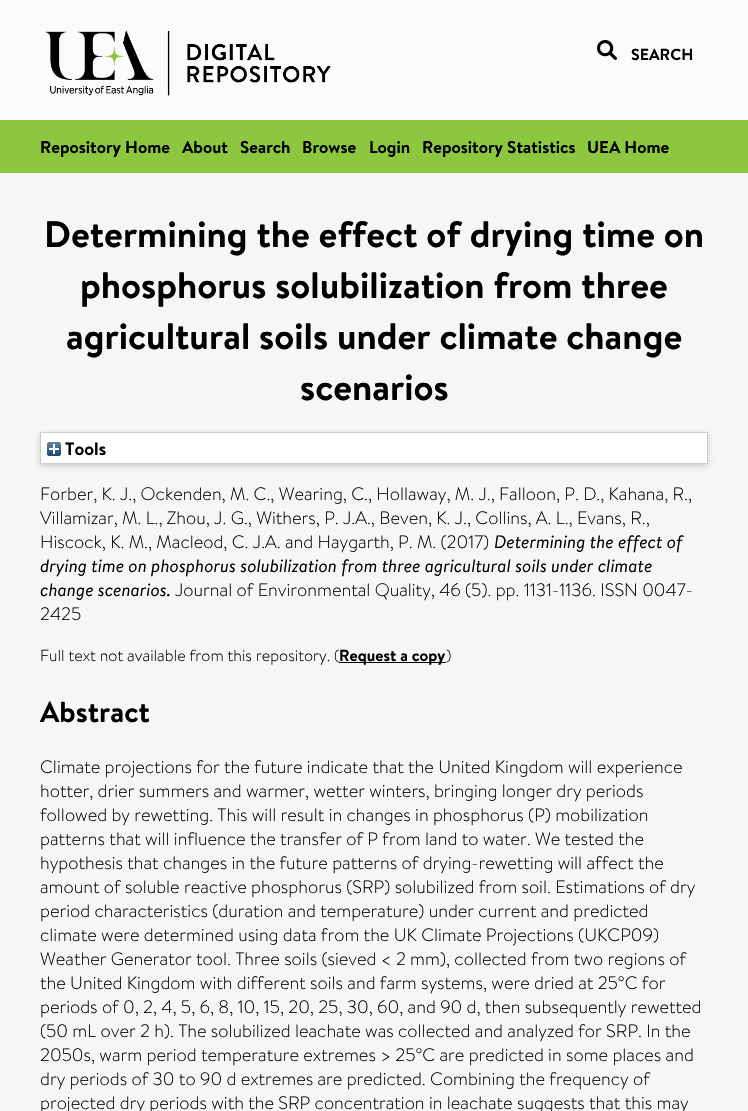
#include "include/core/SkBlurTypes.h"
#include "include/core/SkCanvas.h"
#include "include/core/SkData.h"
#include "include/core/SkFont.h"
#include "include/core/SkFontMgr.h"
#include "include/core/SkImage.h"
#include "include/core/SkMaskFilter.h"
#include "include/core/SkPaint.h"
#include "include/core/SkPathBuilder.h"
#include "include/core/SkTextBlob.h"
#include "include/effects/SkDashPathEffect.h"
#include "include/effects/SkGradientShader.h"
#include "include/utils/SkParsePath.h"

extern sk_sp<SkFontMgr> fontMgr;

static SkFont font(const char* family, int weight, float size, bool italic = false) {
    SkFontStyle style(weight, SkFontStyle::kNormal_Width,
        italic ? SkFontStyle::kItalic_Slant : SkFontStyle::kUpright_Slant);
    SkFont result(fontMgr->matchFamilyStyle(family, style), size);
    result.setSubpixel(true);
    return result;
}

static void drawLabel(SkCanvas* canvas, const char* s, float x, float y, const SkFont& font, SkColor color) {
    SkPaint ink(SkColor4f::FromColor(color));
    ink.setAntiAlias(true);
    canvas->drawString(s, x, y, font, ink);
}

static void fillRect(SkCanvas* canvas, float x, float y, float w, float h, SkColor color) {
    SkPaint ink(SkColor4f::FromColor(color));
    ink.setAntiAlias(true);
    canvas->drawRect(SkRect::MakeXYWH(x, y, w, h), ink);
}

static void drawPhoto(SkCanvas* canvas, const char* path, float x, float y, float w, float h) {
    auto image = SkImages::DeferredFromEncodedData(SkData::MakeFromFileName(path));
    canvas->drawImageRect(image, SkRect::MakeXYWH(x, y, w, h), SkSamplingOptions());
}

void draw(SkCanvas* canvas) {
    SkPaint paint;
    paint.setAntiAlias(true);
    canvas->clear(0xFFF6F6F6);
    fillRect(canvas, 0, 0, 748, 120, 0xFFFBFBFB);
    drawPhoto(canvas, "assets/img1.png", 45, 30, 286, 66);
    drawPhoto(canvas, "assets/img2.png", 597, 40, 20, 20);
    SkFont font1 = font("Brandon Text", 700, 16);
    drawLabel(canvas, "SEARCH", 631, 60, font1, 0xFF000000);
    fillRect(canvas, 0, 120, 748, 53, 0xFF8DC63F);
    SkFont font2 = font("Brandon Text", 700, 17);
    drawLabel(canvas, "Repository Home", 40, 153, font2, 0xFF000000);
    drawLabel(canvas, "About", 182, 153, font2, 0xFF000000);
    drawLabel(canvas, "Search", 240, 153, font2, 0xFF000000);
    drawLabel(canvas, "Browse", 302, 153, font2, 0xFF000000);
    drawLabel(canvas, "Login", 369, 153, font2, 0xFF000000);
    drawLabel(canvas, "Repository Statistics", 422, 153, font2, 0xFF000000);
    drawLabel(canvas, "UEA Home", 587, 153, font2, 0xFF000000);
    SkFont font3 = font("Brandon Text", 700, 36.75f);
    drawLabel(canvas, "Determining the effect of drying time on", 44, 247, font3, 0xFF000000);
    drawLabel(canvas, "phosphorus solubilization from three", 80, 298, font3, 0xFF000000);
    drawLabel(canvas, "agricultural soils under climate change", 66, 349, font3, 0xFF000000);
    drawLabel(canvas, "scenarios", 300, 400, font3, 0xFF000000);
    paint.setColor(0x4D646464);
    paint.setMaskFilter(SkMaskFilter::MakeBlur(kNormal_SkBlurStyle, 3));
    canvas->drawRect(SkRect::MakeXYWH(40, 434, 668, 32), paint);
    paint.setMaskFilter(nullptr);
    paint.setColor(0xFFFFFFFF);
    canvas->drawRect(SkRect::MakeXYWH(40.5f, 432.5f, 667, 31), paint);
    paint.setStroke(true);
    paint.setStrokeWidth(1);
    paint.setColor(0xFFCCCCCC);
    canvas->drawRect(SkRect::MakeXYWH(40.5f, 432.5f, 667, 31), paint);
    drawPhoto(canvas, "assets/img3.png", 47, 442, 14, 14);
    SkFont font4 = font("Brandon Text", 700, 18);
    drawLabel(canvas, "Tools", 65, 455, font4, 0xFF000000);
    SkFont font5 = font("Brandon Text", 300, 18);
    drawLabel(canvas, "Forber, K. J., Ockenden, M. C., Wearing, C., Hollaway, M. J., Falloon, P. D., Kahana, R.,", 40, 500, font5, 0xFF000000);
    drawLabel(canvas, "Villamizar, M. L., Zhou, J. G., Withers, P. J.A., Beven, K. J., Collins, A. L., Evans, R.,", 40, 524, font5, 0xFF000000);
    drawLabel(canvas, "Hiscock, K. M., Macleod, C. J.A. and Haygarth, P. M. (2017)", 40, 548, font5, 0xFF000000);
    SkFont font6 = font("Brandon Text", 400, 18, true);
    drawLabel(canvas, "Determining the effect of", 494, 548, font6, 0xFF000000);
    drawLabel(canvas, "drying time on phosphorus solubilization from three agricultural soils under climate", 40, 572, font6, 0xFF000000);
    drawLabel(canvas, "change scenarios.", 40, 596, font6, 0xFF000000);
    drawLabel(canvas, "Journal of Environmental Quality, 46 (5). pp. 1131-1136. ISSN 0047-", 175, 596, font5, 0xFF000000);
    drawLabel(canvas, "2425", 40, 620, font5, 0xFF000000);
    SkFont font7 = font("Brandon Text", 300, 16);
    drawLabel(canvas, "Full text not available from this repository. (", 40, 661, font7, 0xFF000000);
    fillRect(canvas, 339, 662, 107, 1, 0xFF000000);
    drawLabel(canvas, "Request a copy", 339, 661, font1, 0xFF000000);
    drawLabel(canvas, ")", 446, 661, font7, 0xFF000000);
    SkFont font8 = font("Brandon Text", 700, 29);
    drawLabel(canvas, "Abstract", 40, 722, font8, 0xFF000000);
    drawLabel(canvas, "Climate projections for the future indicate that the United Kingdom will experience", 40, 773, font5, 0xFF000000);
    drawLabel(canvas, "hotter, drier summers and warmer, wetter winters, bringing longer dry periods", 40, 797, font5, 0xFF000000);
    drawLabel(canvas, "followed by rewetting. This will result in changes in phosphorus (P) mobilization", 40, 821, font5, 0xFF000000);
    drawLabel(canvas, "patterns that will influence the transfer of P from land to water. We tested the", 40, 845, font5, 0xFF000000);
    drawLabel(canvas, "hypothesis that changes in the future patterns of drying-rewetting will affect the", 40, 869, font5, 0xFF000000);
    drawLabel(canvas, "amount of soluble reactive phosphorus (SRP) solubilized from soil. Estimations of dry", 40, 893, font5, 0xFF000000);
    drawLabel(canvas, "period characteristics (duration and temperature) under current and predicted", 40, 917, font5, 0xFF000000);
    drawLabel(canvas, "climate were determined using data from the UK Climate Projections (UKCP09)", 40, 941, font5, 0xFF000000);
    drawLabel(canvas, "Weather Generator tool. Three soils (sieved < 2 mm), collected from two regions of", 40, 965, font5, 0xFF000000);
    drawLabel(canvas, "the United Kingdom with different soils and farm systems, were dried at 25°C for", 40, 989, font5, 0xFF000000);
    drawLabel(canvas, "periods of 0, 2, 4, 5, 6, 8, 10, 15, 20, 25, 30, 60, and 90 d, then subsequently rewetted", 40, 1013, font5, 0xFF000000);
    drawLabel(canvas, "(50 mL over 2 h). The solubilized leachate was collected and analyzed for SRP. In the", 40, 1037, font5, 0xFF000000);
    drawLabel(canvas, "2050s, warm period temperature extremes > 25°C are predicted in some places and", 40, 1061, font5, 0xFF000000);
    drawLabel(canvas, "dry periods of 30 to 90 d extremes are predicted. Combining the frequency of", 40, 1085, font5, 0xFF000000);
    drawLabel(canvas, "projected dry periods with the SRP concentration in leachate suggests that this may", 40, 1109, font5, 0xFF000000);
}
